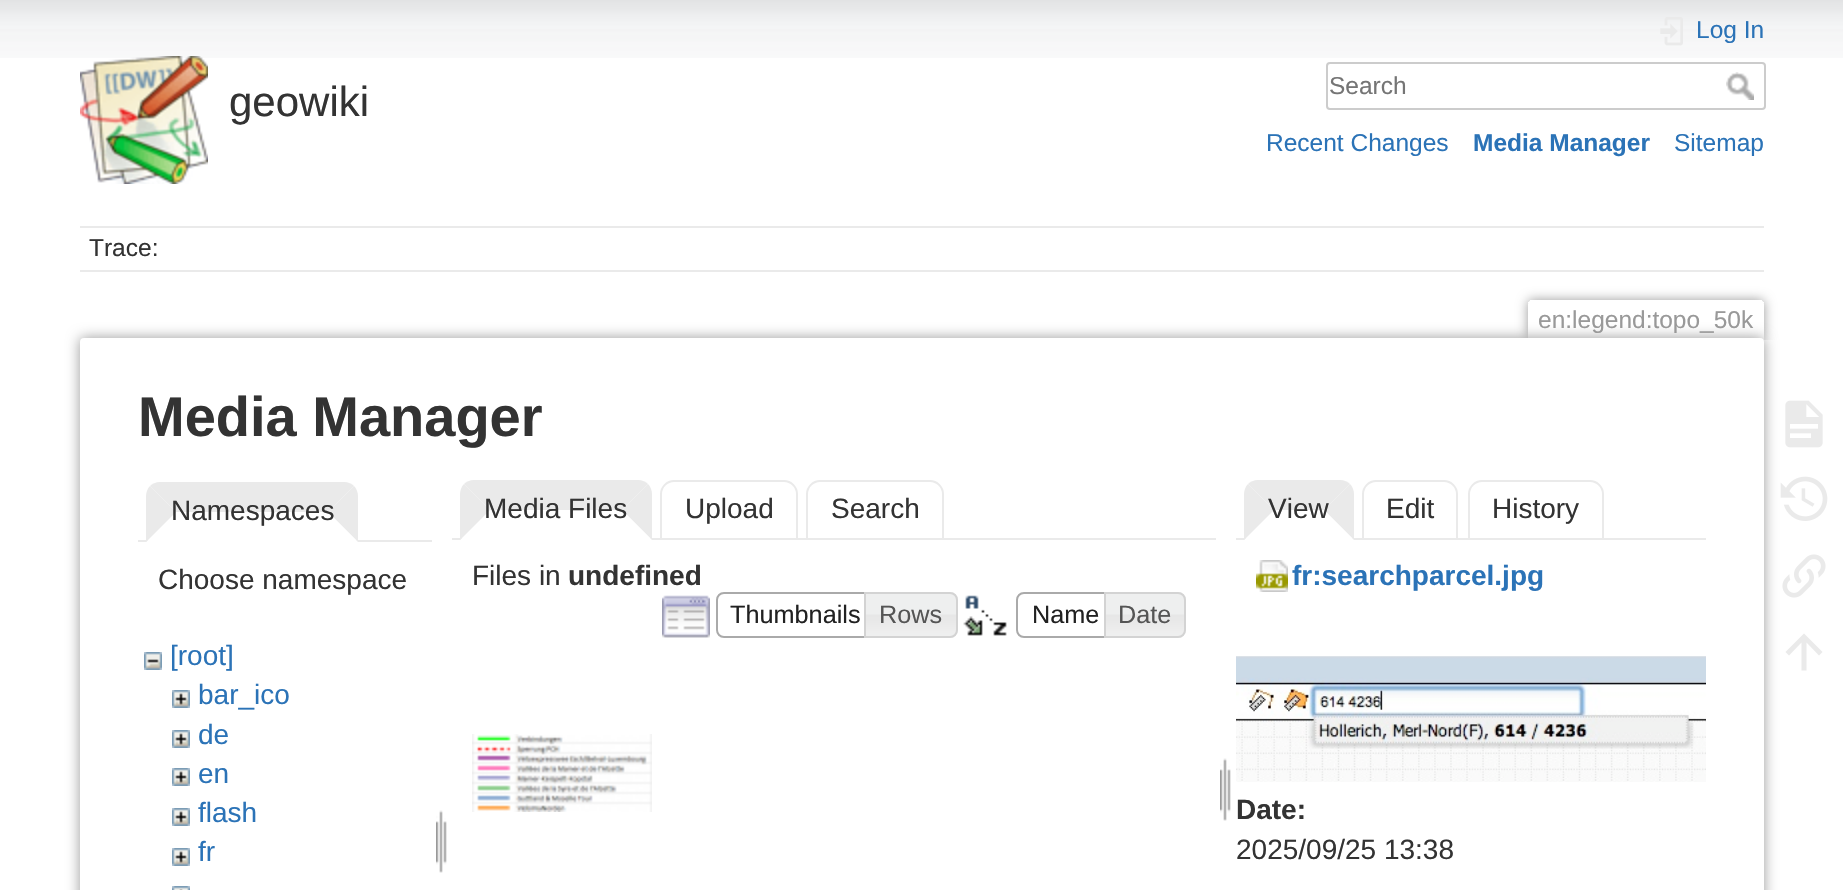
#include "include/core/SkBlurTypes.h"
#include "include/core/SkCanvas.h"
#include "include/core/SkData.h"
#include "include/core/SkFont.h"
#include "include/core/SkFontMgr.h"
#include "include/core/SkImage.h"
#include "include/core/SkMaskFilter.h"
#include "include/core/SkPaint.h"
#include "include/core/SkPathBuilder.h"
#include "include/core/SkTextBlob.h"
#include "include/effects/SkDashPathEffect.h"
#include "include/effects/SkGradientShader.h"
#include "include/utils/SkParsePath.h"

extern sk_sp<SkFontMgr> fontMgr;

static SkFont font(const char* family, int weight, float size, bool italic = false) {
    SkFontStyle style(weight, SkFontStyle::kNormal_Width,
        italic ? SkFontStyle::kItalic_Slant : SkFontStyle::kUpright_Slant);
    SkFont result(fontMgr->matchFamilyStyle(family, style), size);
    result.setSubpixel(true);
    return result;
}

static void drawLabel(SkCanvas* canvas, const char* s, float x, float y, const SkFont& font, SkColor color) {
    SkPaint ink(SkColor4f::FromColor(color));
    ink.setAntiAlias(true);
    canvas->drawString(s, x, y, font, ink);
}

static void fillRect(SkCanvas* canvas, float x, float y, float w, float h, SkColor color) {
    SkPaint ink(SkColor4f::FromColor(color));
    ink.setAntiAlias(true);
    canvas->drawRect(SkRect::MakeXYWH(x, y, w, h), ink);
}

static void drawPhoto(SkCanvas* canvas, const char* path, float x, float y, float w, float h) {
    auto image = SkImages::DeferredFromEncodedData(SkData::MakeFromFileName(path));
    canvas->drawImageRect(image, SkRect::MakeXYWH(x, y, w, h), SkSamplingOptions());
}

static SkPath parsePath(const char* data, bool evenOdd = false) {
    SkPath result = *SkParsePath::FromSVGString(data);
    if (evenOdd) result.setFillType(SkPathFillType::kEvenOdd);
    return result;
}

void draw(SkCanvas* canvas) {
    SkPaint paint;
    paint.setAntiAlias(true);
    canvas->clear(0xFFFFFFFF);
    drawPhoto(canvas, "assets/img1.png", 0, 0, 1843, 58);
    drawPhoto(canvas, "assets/img2.png", 80, 56, 128, 128);
    SkFont font1 = font("Liberation Sans", 400, 42);
    drawLabel(canvas, "geowiki", 229, 116, font1, 0xFF333333);
    drawPhoto(canvas, "assets/img3.png", 1660, 17, 23, 29);
    SkFont font2 = font("Liberation Sans", 400, 24.5f);
    drawLabel(canvas, "Log In", 1696, 38, font2, 0xFF2B73B7);
    paint.setStroke(true);
    paint.setStrokeWidth(2);
    paint.setColor(0xFFCCCCCC);
    canvas->drawRoundRect(SkRect::MakeXYWH(1327, 63, 438, 46), 3, 3, paint);
    drawLabel(canvas, "Search", 1329, 94, font2, 0xFF757575);
    drawPhoto(canvas, "assets/img4.png", 1726, 72, 28, 28);
    drawLabel(canvas, "Recent Changes", 1266, 151, font2, 0xFF2B73B7);
    SkFont font3 = font("Liberation Sans", 700, 24.5f);
    drawLabel(canvas, "Media Manager", 1473, 151, font3, 0xFF2B73B7);
    drawLabel(canvas, "Sitemap", 1674, 151, font2, 0xFF2B73B7);
    fillRect(canvas, 80, 226, 1684, 2, 0xFFEAEAEA);
    fillRect(canvas, 80, 270, 1684, 2, 0xFFEAEAEA);
    drawLabel(canvas, "Trace:", 89, 256, font2, 0xFF333333);
    canvas->save();
    canvas->clipRect(SkRect::MakeXYWH(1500, 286, 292, 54));
    canvas->clipPath(parsePath("M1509 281H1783V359H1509ZM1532 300H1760C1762 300 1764 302 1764 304V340H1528V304C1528 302 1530 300 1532 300Z", true), true);
    paint.setStroke(false);
    paint.setColor(0xFF999999);
    paint.setMaskFilter(SkMaskFilter::MakeBlur(kNormal_SkBlurStyle, 6));
    canvas->drawRoundRect(SkRect::MakeXYWH(1528, 300, 236, 40), 4, 4, paint);
    paint.setMaskFilter(nullptr);
    canvas->restore();
    fillRect(canvas, 1530, 300, 232, 1, 0xFFFFFFFF);
    fillRect(canvas, 1763, 302, 1, 1, 0xFFFFFFFF);
    fillRect(canvas, 1528, 302, 1, 1, 0xFFFFFFFF);
    drawLabel(canvas, "en:legend:topo_50k", 1538, 328, font2, 0xFF999999);
    paint.setMaskFilter(SkMaskFilter::MakeBlur(kNormal_SkBlurStyle, 7));
    canvas->drawRoundRect(SkRect::MakeXYWH(80, 338, 1684, 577), 4, 4, paint);
    paint.setMaskFilter(nullptr);
    paint.setColor(0xFFFFFFFF);
    canvas->drawRoundRect(SkRect::MakeXYWH(81, 339, 1682, 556), 3, 3, paint);
    paint.setStroke(true);
    canvas->drawRoundRect(SkRect::MakeXYWH(81, 339, 1682, 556), 3, 3, paint);
    SkFont font4 = font("Liberation Sans", 700, 56);
    drawLabel(canvas, "Media Manager", 138, 436, font4, 0xFF333333);
    paint.setStroke(false);
    paint.setColor(0xFFEAEAEA);
    canvas->drawPath(parsePath("M160 482H344C348 482 352 484 354 486L328 512H176L150 486C152 484 156 482 160 482Z"), paint);
    fillRect(canvas, 138, 540, 294, 2, 0xFFEAEAEA);
    canvas->drawPath(parsePath("M354 486L328 512L358 542V496C358 492 356 488 354 486Z"), paint);
    paint.setColor(0xFFFFFFFF);
    canvas->drawPath(parsePath("M358 542L328 512H176L146 542Z"), paint);
    paint.setColor(0xFFEAEAEA);
    canvas->drawPath(parsePath("M146 542V496C146 492 148 488 150 486L176 512Z"), paint);
    SkFont font5 = font("Liberation Sans", 400, 28);
    drawLabel(canvas, "Namespaces", 171, 520, font5, 0xFF333333);
    drawLabel(canvas, "Choose namespace", 158, 589, font5, 0xFF333333);
    drawPhoto(canvas, "assets/img5.png", 144, 652, 18, 18);
    drawLabel(canvas, "[root]", 170, 665, font5, 0xFF2B73B7);
    drawPhoto(canvas, "assets/img6.png", 172, 690, 18, 18);
    drawLabel(canvas, "bar_ico", 198, 704, font5, 0xFF2B73B7);
    drawPhoto(canvas, "assets/img6.png", 172, 730, 18, 18);
    drawLabel(canvas, "de", 198, 744, font5, 0xFF2B73B7);
    drawPhoto(canvas, "assets/img6.png", 172, 768, 18, 18);
    drawLabel(canvas, "en", 198, 783, font5, 0xFF2B73B7);
    drawPhoto(canvas, "assets/img6.png", 172, 808, 18, 18);
    drawLabel(canvas, "flash", 198, 822, font5, 0xFF2B73B7);
    drawPhoto(canvas, "assets/img6.png", 172, 848, 18, 18);
    drawLabel(canvas, "fr", 198, 861, font5, 0xFF2B73B7);
    drawPhoto(canvas, "assets/img7.png", 172, 886, 18, 4);
    drawPhoto(canvas, "assets/img8.png", 436, 810, 11, 63);
    canvas->drawPath(parsePath("M474 480H638C642 480 646 482 648 484L622 510H490L464 484C466 482 470 480 474 480Z"), paint);
    paint.setStroke(true);
    canvas->drawPath(parsePath("M674 481H784C791 481 797 487 797 494V539H661V494C661 487 667 481 674 481Z"), paint);
    canvas->drawPath(parsePath("M820 481H930C937 481 943 487 943 494V539H807V494C807 487 813 481 820 481Z"), paint);
    fillRect(canvas, 452, 538, 764, 2, 0xFFEAEAEA);
    paint.setStroke(false);
    canvas->drawPath(parsePath("M648 484L622 510L652 540V494C652 490 650 486 648 484Z"), paint);
    paint.setColor(0xFFFFFFFF);
    canvas->drawPath(parsePath("M652 540L622 510H490L460 540Z"), paint);
    paint.setColor(0xFFEAEAEA);
    canvas->drawPath(parsePath("M460 540V494C460 490 462 486 464 484L490 510Z"), paint);
    drawLabel(canvas, "Media Files", 484, 518, font5, 0xFF333333);
    drawLabel(canvas, "Upload", 685, 518, font5, 0xFF333333);
    drawLabel(canvas, "Search", 831, 518, font5, 0xFF333333);
    drawLabel(canvas, "Files in", 472, 585, font5, 0xFF333333);
    SkFont font6 = font("Liberation Sans", 700, 28);
    drawLabel(canvas, "undefined", 568, 585, font6, 0xFF333333);
    drawPhoto(canvas, "assets/img9.png", 662, 595, 48, 43);
    paint.setStroke(true);
    paint.setColor(0xFFAAAAAA);
    canvas->drawPath(parsePath("M724 593H873V637H724C720 637 717 634 717 630V600C717 596 720 593 724 593Z"), paint);
    SkFont font7 = font("Liberation Sans", 400, 25.25f);
    drawLabel(canvas, "Thumbnails", 730, 623, font7, 0xFF212121);
    drawPhoto(canvas, "assets/img10.png", 866, 592, 92, 46);
    paint.setColor(0xFFD3D3D3);
    canvas->drawPath(parsePath("M865 593H950C954 593 957 596 957 600V630C957 634 954 637 950 637H865Z"), paint);
    drawLabel(canvas, "Rows", 879, 623, font7, 0xFF555555);
    drawPhoto(canvas, "assets/img11.png", 963, 595, 44, 41);
    paint.setColor(0xFFAAAAAA);
    canvas->drawPath(parsePath("M1024 593H1113V637H1024C1020 637 1017 634 1017 630V600C1017 596 1020 593 1024 593Z"), paint);
    drawLabel(canvas, "Name", 1032, 623, font7, 0xFF212121);
    drawPhoto(canvas, "assets/img12.png", 1106, 592, 80, 46);
    paint.setColor(0xFFD3D3D3);
    canvas->drawPath(parsePath("M1105 593H1178C1182 593 1185 596 1185 600V630C1185 634 1182 637 1178 637H1105Z"), paint);
    drawLabel(canvas, "Date", 1118, 623, font7, 0xFF555555);
    drawPhoto(canvas, "assets/img13.png", 472, 734, 180, 78);
    drawPhoto(canvas, "assets/img8.png", 1220, 758, 11, 63);
    paint.setStroke(false);
    paint.setColor(0xFFEAEAEA);
    canvas->drawPath(parsePath("M1258 480H1340C1344 480 1348 482 1350 484L1324 510H1274L1248 484C1250 482 1254 480 1258 480Z"), paint);
    paint.setStroke(true);
    canvas->drawPath(parsePath("M1376 481H1444C1451 481 1457 487 1457 494V539H1363V494C1363 487 1369 481 1376 481Z"), paint);
    canvas->drawPath(parsePath("M1482 481H1590C1597 481 1603 487 1603 494V539H1469V494C1469 487 1475 481 1482 481Z"), paint);
    fillRect(canvas, 1236, 538, 470, 2, 0xFFEAEAEA);
    paint.setStroke(false);
    canvas->drawPath(parsePath("M1350 484L1324 510L1354 540V494C1354 490 1352 486 1350 484Z"), paint);
    paint.setColor(0xFFFFFFFF);
    canvas->drawPath(parsePath("M1354 540L1324 510H1274L1244 540Z"), paint);
    paint.setColor(0xFFEAEAEA);
    canvas->drawPath(parsePath("M1244 540V494C1244 490 1246 486 1248 484L1274 510Z"), paint);
    drawLabel(canvas, "View", 1268, 518, font5, 0xFF333333);
    drawLabel(canvas, "Edit", 1386, 518, font5, 0xFF333333);
    drawLabel(canvas, "History", 1492, 518, font5, 0xFF333333);
    drawPhoto(canvas, "assets/img14.png", 1256, 560, 32, 32);
    drawLabel(canvas, "fr:searchparcel.jpg", 1292, 585, font6, 0xFF2B73B7);
    drawPhoto(canvas, "assets/img15.png", 1236, 656, 470, 126);
    drawLabel(canvas, "Date:", 1236, 819, font6, 0xFF333333);
    drawLabel(canvas, "2025/09/25 13:38", 1236, 859, font5, 0xFF333333);
    drawPhoto(canvas, "assets/img16.png", 1785, 400, 38, 48);
    drawPhoto(canvas, "assets/img17.png", 1780, 476, 48, 45);
    drawPhoto(canvas, "assets/img18.png", 1782, 554, 44, 44);
    canvas->drawPath(parsePath("M1806.5 670.5H1801.5V642.5L1789 655.5L1785.5 652L1804 633.5L1822.5 652L1819 655.5L1806.5 642.5Z"), paint);
}
